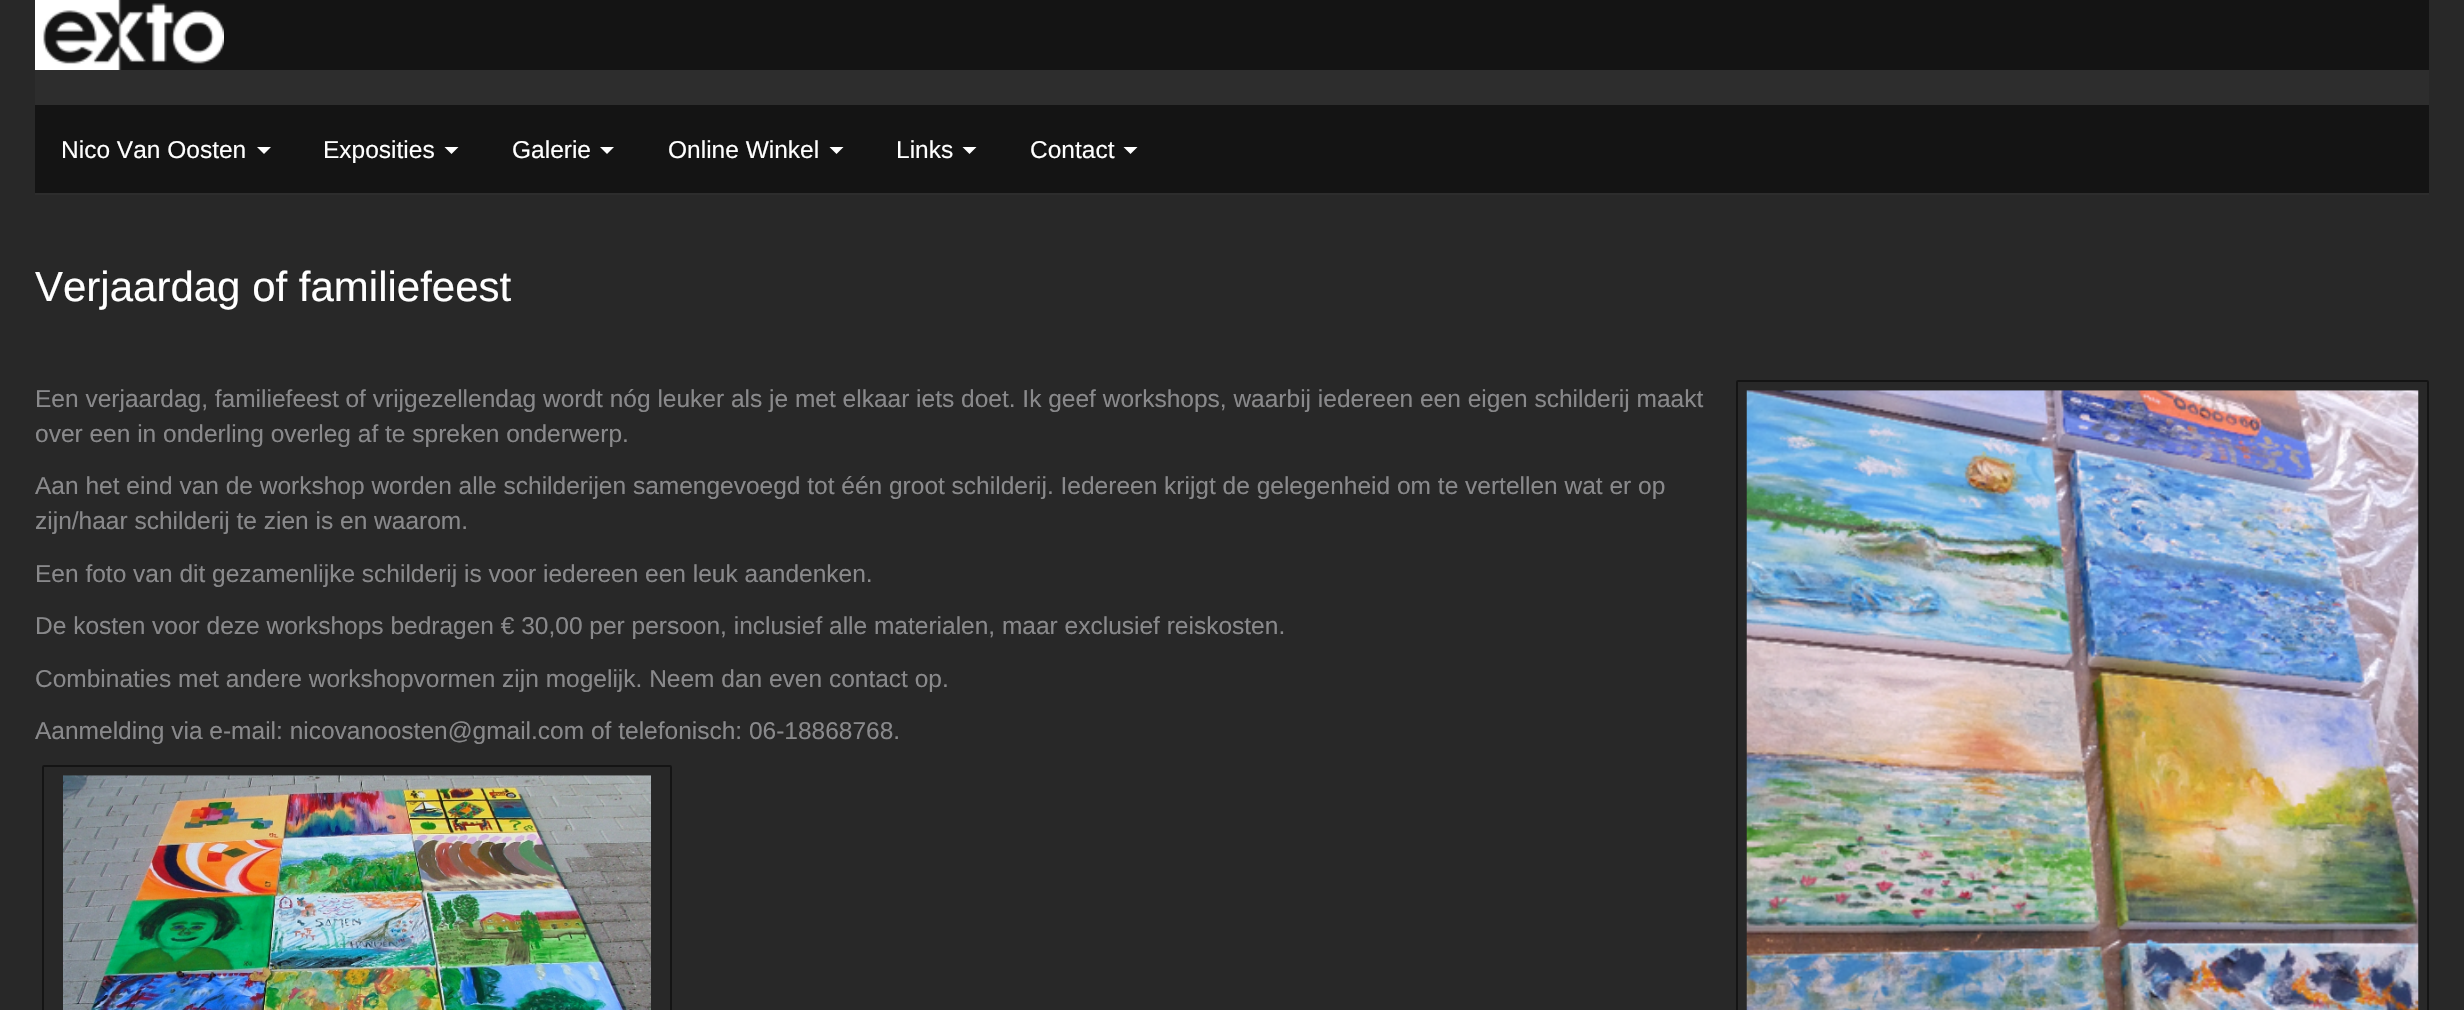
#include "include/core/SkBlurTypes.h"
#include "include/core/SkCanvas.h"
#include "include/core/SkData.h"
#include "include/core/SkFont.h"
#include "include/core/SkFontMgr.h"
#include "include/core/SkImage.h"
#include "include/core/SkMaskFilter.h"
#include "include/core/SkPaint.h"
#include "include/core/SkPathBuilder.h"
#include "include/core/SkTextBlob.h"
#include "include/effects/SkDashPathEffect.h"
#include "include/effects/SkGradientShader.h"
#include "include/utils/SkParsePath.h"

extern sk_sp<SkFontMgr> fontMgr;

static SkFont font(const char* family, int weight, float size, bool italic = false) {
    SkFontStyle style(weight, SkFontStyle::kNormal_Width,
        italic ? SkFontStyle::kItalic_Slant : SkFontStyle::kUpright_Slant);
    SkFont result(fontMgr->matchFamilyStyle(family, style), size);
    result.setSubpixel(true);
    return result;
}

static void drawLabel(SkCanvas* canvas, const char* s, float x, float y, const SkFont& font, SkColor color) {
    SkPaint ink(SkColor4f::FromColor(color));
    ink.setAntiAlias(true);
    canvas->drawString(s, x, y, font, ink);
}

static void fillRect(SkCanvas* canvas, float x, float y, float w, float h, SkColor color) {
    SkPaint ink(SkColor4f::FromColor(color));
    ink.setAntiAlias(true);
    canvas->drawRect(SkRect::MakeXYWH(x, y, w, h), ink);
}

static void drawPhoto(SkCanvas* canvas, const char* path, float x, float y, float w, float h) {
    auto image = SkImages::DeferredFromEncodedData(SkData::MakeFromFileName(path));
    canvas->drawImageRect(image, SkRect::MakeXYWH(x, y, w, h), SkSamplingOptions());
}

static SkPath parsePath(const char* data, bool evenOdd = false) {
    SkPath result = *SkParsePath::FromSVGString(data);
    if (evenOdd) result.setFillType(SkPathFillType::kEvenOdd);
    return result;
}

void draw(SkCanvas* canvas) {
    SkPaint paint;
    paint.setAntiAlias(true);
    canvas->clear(0xFF282828);
    fillRect(canvas, 43, 0, 2386, 70, 0xFF141414);
    drawPhoto(canvas, "assets/img1.png", 35, 0, 189, 70);
    fillRect(canvas, 35, 70, 2394, 35, 0xFF2D2D2D);
    fillRect(canvas, 35, 105, 2394, 88, 0xFF141414);
    fillRect(canvas, 35, 193, 2394, 2, 0xFF2D2D2D);
    SkFont font1 = font("Liberation Sans", 400, 24.5f);
    drawLabel(canvas, "Nico Van Oosten", 61, 158, font1, 0xFFFFFFFF);
    paint.setColor(0xFFFFFFFF);
    canvas->drawPath(parsePath("M257 147H271L264 154Z"), paint);
    drawLabel(canvas, "Exposities", 323, 158, font1, 0xFFFFFFFF);
    canvas->drawPath(parsePath("M444.5 147H458.5L451.5 154Z"), paint);
    drawLabel(canvas, "Galerie", 512, 158, font1, 0xFFFFFFFF);
    canvas->drawPath(parsePath("M600 147H614L607 154Z"), paint);
    drawLabel(canvas, "Online Winkel", 668, 158, font1, 0xFFFFFFFF);
    canvas->drawPath(parsePath("M829.5 147H843.5L836.5 154Z"), paint);
    drawLabel(canvas, "Links", 896, 158, font1, 0xFFFFFFFF);
    canvas->drawPath(parsePath("M962.5 147H976.5L969.5 154Z"), paint);
    drawLabel(canvas, "Contact", 1030, 158, font1, 0xFFFFFFFF);
    canvas->drawPath(parsePath("M1123.5 147H1137.5L1130.5 154Z"), paint);
    SkFont font2 = font("Liberation Sans", 400, 42);
    drawLabel(canvas, "Verjaardag of familiefeest", 35, 301, font2, 0xFFFFFFFF);
    drawLabel(canvas, "Een verjaardag, familiefeest of vrijgezellendag wordt nóg leuker als je met elkaar iets doet. Ik geef workshops, waarbij iedereen een eigen schilderij maakt", 35, 407, font1, 0xFF89898B);
    drawLabel(canvas, "over een in onderling overleg af te spreken onderwerp.", 35, 442, font1, 0xFF89898B);
    drawLabel(canvas, "Aan het eind van de workshop worden alle schilderijen samengevoegd tot één groot schilderij. Iedereen krijgt de gelegenheid om te vertellen wat er op", 35, 494, font1, 0xFF89898B);
    drawLabel(canvas, "zijn/haar schilderij te zien is en waarom.", 35, 529, font1, 0xFF89898B);
    drawLabel(canvas, "Een foto van dit gezamenlijke schilderij is voor iedereen een leuk aandenken.", 35, 582, font1, 0xFF89898B);
    drawLabel(canvas, "De kosten voor deze workshops bedragen € 30,00 per persoon, inclusief alle materialen, maar exclusief reiskosten.", 35, 634, font1, 0xFF89898B);
    drawLabel(canvas, "Combinaties met andere workshopvormen zijn mogelijk. Neem dan even contact op.", 35, 687, font1, 0xFF89898B);
    drawLabel(canvas, "Aanmelding via e-mail: nicovanoosten@gmail.com of telefonisch: 06-18868768.", 35, 739, font1, 0xFF89898B);
    paint.setStroke(true);
    paint.setStrokeWidth(2);
    paint.setColor(0xFF141414);
    canvas->drawRoundRect(SkRect::MakeXYWH(43, 766, 628, 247), 1, 1, paint);
    drawPhoto(canvas, "assets/img2.png", 63, 775, 588, 235);
    canvas->drawRoundRect(SkRect::MakeXYWH(1737, 381, 691, 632), 1, 1, paint);
    drawPhoto(canvas, "assets/img3.png", 1746, 390, 673, 620);
}
